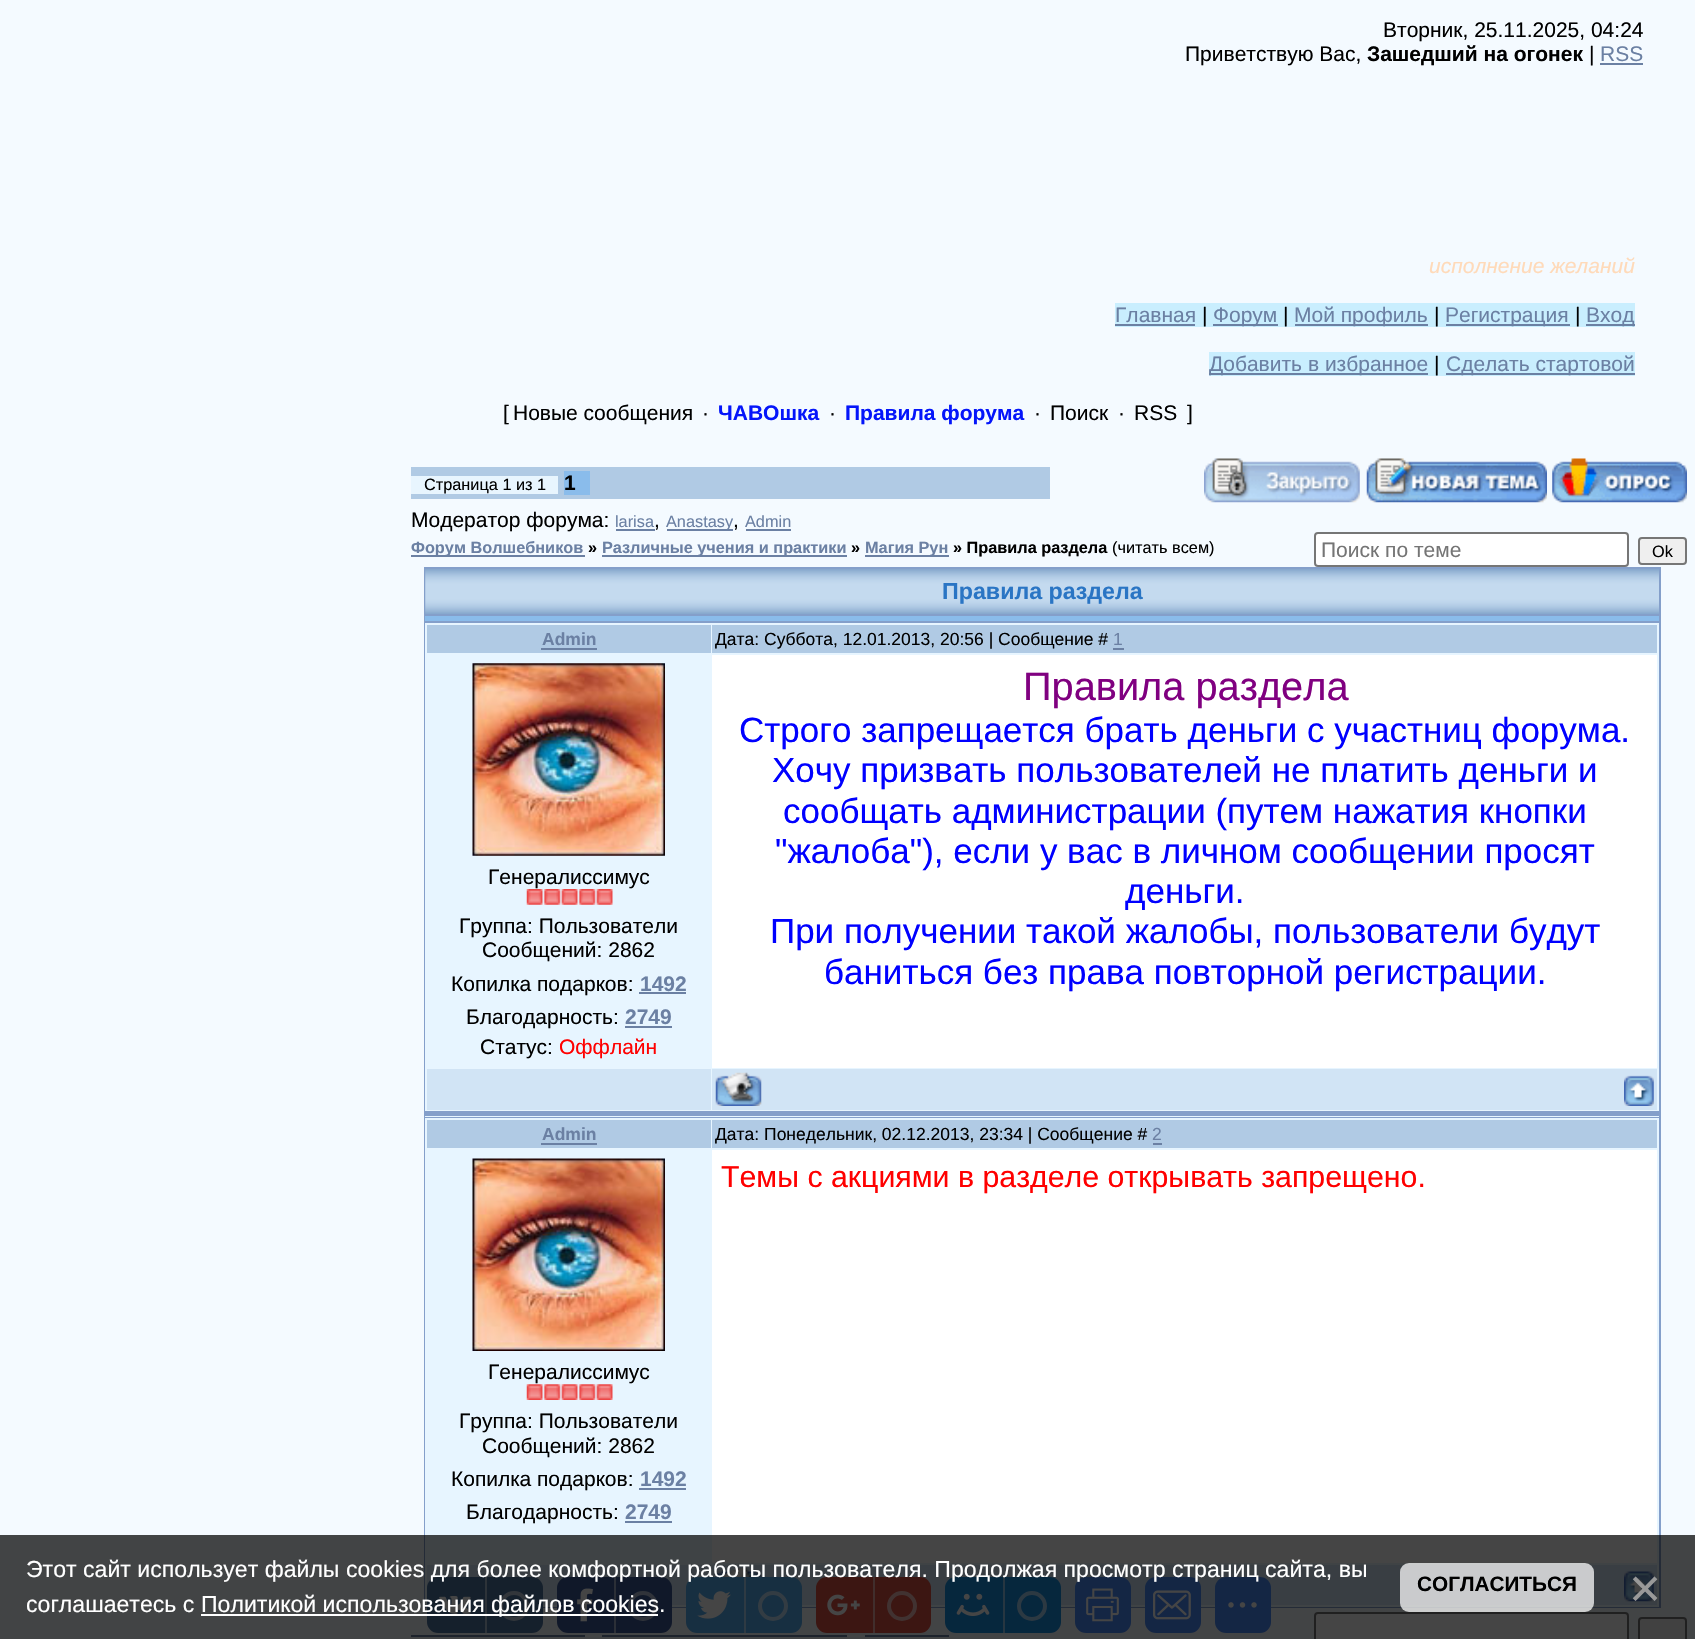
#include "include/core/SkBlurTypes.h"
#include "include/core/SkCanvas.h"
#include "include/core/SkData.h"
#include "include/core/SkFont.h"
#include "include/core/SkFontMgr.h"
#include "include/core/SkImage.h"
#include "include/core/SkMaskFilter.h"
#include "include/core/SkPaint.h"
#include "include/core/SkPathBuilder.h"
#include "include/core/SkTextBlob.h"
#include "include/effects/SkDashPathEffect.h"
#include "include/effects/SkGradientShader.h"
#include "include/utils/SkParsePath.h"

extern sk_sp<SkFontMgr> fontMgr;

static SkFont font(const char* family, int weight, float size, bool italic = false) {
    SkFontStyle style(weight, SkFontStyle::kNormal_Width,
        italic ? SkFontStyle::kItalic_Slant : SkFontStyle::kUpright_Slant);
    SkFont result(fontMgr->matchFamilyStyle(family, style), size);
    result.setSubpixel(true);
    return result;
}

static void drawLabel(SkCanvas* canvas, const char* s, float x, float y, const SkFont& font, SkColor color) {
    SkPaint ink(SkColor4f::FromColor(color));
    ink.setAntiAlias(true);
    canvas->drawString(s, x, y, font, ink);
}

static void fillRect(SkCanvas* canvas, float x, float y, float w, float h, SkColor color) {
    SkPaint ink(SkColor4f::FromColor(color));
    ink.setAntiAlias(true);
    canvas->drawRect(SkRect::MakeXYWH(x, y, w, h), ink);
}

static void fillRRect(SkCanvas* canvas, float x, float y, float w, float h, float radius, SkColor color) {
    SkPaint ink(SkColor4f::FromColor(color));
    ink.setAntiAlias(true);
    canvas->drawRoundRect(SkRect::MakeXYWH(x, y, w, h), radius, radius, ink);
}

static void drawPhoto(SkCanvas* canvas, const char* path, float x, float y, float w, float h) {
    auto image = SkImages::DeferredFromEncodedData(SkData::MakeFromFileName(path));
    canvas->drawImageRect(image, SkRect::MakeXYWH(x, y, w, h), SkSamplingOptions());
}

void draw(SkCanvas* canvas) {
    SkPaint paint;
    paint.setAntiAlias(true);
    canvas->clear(0xFFF4FAFF);
    SkFont font1 = font("Liberation Sans", 400, 21);
    drawLabel(canvas, "Вторник, 25.11.2025, 04:24", 1383, 37, font1, 0xFF000000);
    drawLabel(canvas, "Приветствую Вас,", 1185, 61, font1, 0xFF000000);
    SkFont font2 = font("Liberation Sans", 700, 21);
    drawLabel(canvas, "Зашедший на огонек", 1367, 61, font2, 0xFF000000);
    drawLabel(canvas, "|", 1589, 61, font1, 0xFF000000);
    drawLabel(canvas, "RSS", 1600, 61, font1, 0xFF6B80A3);
    fillRect(canvas, 1600, 63, 43, 2, 0xFF6B80A3);
    SkFont font3 = font("Liberation Sans", 400, 21, true);
    drawLabel(canvas, "исполнение желаний", 1429, 273, font3, 0xFFFFDAB9);
    fillRect(canvas, 1115, 303, 520, 24, 0xFFC9EEFE);
    drawLabel(canvas, "Главная", 1115, 322, font1, 0xFF6B80A3);
    fillRect(canvas, 1115, 324, 80, 2, 0xFF6B80A3);
    drawLabel(canvas, "|", 1202, 322, font1, 0xFF000000);
    fillRect(canvas, 1213, 324, 65, 2, 0xFF6B80A3);
    drawLabel(canvas, "Форум", 1213, 322, font1, 0xFF6B80A3);
    drawLabel(canvas, "|", 1283, 322, font1, 0xFF000000);
    fillRect(canvas, 1295, 324, 133, 2, 0xFF6B80A3);
    drawLabel(canvas, "Мой профиль", 1294, 322, font1, 0xFF6B80A3);
    drawLabel(canvas, "|", 1434, 322, font1, 0xFF000000);
    fillRect(canvas, 1446, 324, 124, 2, 0xFF6B80A3);
    drawLabel(canvas, "Регистрация", 1445, 322, font1, 0xFF6B80A3);
    drawLabel(canvas, "|", 1575, 322, font1, 0xFF000000);
    fillRect(canvas, 1586, 324, 49, 2, 0xFF6B80A3);
    drawLabel(canvas, "Вход", 1586, 322, font1, 0xFF6B80A3);
    fillRect(canvas, 1209, 352, 426, 24, 0xFFC9EEFE);
    fillRect(canvas, 1209, 373, 219, 2, 0xFF6B80A3);
    drawLabel(canvas, "Добавить в избранное", 1209, 371, font1, 0xFF6B80A3);
    drawLabel(canvas, "|", 1434, 371, font1, 0xFF000000);
    fillRect(canvas, 1446, 373, 189, 2, 0xFF6B80A3);
    drawLabel(canvas, "Сделать стартовой", 1446, 371, font1, 0xFF6B80A3);
    drawLabel(canvas, "[", 503, 420, font1, 0xFF000000);
    drawLabel(canvas, "Новые сообщения", 513, 420, font1, 0xFF000000);
    drawLabel(canvas, "·", 702, 420, font1, 0xFF000000);
    drawLabel(canvas, "ЧАВОшка", 718, 420, font2, 0xFF0415FA);
    drawLabel(canvas, "·", 829, 420, font1, 0xFF000000);
    drawLabel(canvas, "Правила форума", 845, 420, font2, 0xFF0415FA);
    drawLabel(canvas, "·", 1034, 420, font1, 0xFF000000);
    drawLabel(canvas, "Поиск", 1050, 420, font1, 0xFF000000);
    drawLabel(canvas, "·", 1118, 420, font1, 0xFF000000);
    drawLabel(canvas, "RSS", 1134, 420, font1, 0xFF000000);
    drawLabel(canvas, "]", 1187, 420, font1, 0xFF000000);
    fillRect(canvas, 411, 467, 639, 32, 0xFFB0CAE4);
    fillRect(canvas, 411, 476, 147, 18, 0xFFE8F5FE);
    SkFont font4 = font("Liberation Sans", 400, 16.3f);
    drawLabel(canvas, "Страница 1 из 1", 424, 490, font4, 0xFF000000);
    fillRect(canvas, 564, 471, 26, 24, 0xFF8ABCEB);
    drawLabel(canvas, "1", 564, 490, font2, 0xFF000000);
    drawPhoto(canvas, "assets/img1.png", 1204, 458, 156, 45);
    drawPhoto(canvas, "assets/img2.png", 1366, 458, 181, 45);
    drawPhoto(canvas, "assets/img3.png", 1552, 458, 135, 45);
    drawLabel(canvas, "Модератор форума:", 411, 527, font1, 0xFF000000);
    drawLabel(canvas, "larisa", 615, 527, font4, 0xFF6B80A3);
    drawLabel(canvas, ",", 654, 527, font1, 0xFF000000);
    fillRect(canvas, 616, 529, 39, 2, 0xFF6B80A3);
    fillRect(canvas, 667, 529, 66, 2, 0xFF6B80A3);
    drawLabel(canvas, "Anastasy", 666, 527, font4, 0xFF6B80A3);
    drawLabel(canvas, ",", 733, 527, font1, 0xFF000000);
    fillRect(canvas, 746, 529, 45, 2, 0xFF6B80A3);
    drawLabel(canvas, "Admin", 745, 527, font4, 0xFF6B80A3);
    fillRect(canvas, 411, 555, 174, 2, 0xFF6B80A3);
    SkFont font5 = font("Liberation Sans", 700, 16.3f);
    drawLabel(canvas, "Форум Волшебников", 411, 553, font5, 0xFF6B80A3);
    drawLabel(canvas, "»", 588, 553, font5, 0xFF000000);
    fillRect(canvas, 602, 555, 245, 2, 0xFF6B80A3);
    drawLabel(canvas, "Различные учения и практики", 602, 553, font5, 0xFF6B80A3);
    drawLabel(canvas, "»", 851, 553, font5, 0xFF000000);
    fillRect(canvas, 865, 555, 84, 2, 0xFF6B80A3);
    drawLabel(canvas, "Магия Рун", 865, 553, font5, 0xFF6B80A3);
    drawLabel(canvas, "» Правила раздела", 953, 553, font5, 0xFF000000);
    drawLabel(canvas, "(читать всем)", 1112, 553, font4, 0xFF000000);
    paint.setColor(0xFFFFFFFF);
    canvas->drawRoundRect(SkRect::MakeXYWH(1315, 533, 313, 33), 3, 3, paint);
    paint.setStroke(true);
    paint.setStrokeWidth(2);
    paint.setColor(0xFF767676);
    canvas->drawRoundRect(SkRect::MakeXYWH(1315, 533, 313, 33), 3, 3, paint);
    drawLabel(canvas, "Поиск по теме", 1321, 557, font1, 0xFF757575);
    paint.setStroke(false);
    paint.setColor(0xFFEFEFEF);
    canvas->drawRoundRect(SkRect::MakeXYWH(1639, 538, 47, 26), 3, 3, paint);
    paint.setStroke(true);
    paint.setColor(0xFF767676);
    canvas->drawRoundRect(SkRect::MakeXYWH(1639, 538, 47, 26), 3, 3, paint);
    drawLabel(canvas, "Ok", 1652, 557, font4, 0xFF000000);
    fillRect(canvas, 424, 567, 1237, 1041, 0xFF849FCA);
    drawPhoto(canvas, "assets/img4.png", 425, 569, 1234, 45);
    SkFont font6 = font("Liberation Sans", 700, 23.25f);
    drawLabel(canvas, "Правила раздела", 942, 599, font6, 0xFF2A75C4);
    fillRect(canvas, 425, 616, 1234, 5, 0xFF8ABCEB);
    fillRect(canvas, 425, 623, 1234, 494, 0xFFE7F5FF);
    fillRect(canvas, 425, 1111, 1234, 5, 0xFF849FCA);
    fillRect(canvas, 427, 625, 284, 28, 0xFFB0CAE4);
    SkFont font7 = font("Liberation Sans", 700, 17.5f);
    drawLabel(canvas, "Admin", 542, 645, font7, 0xFF6B80A3);
    fillRect(canvas, 541, 648, 56, 2, 0xFF6B80A3);
    fillRect(canvas, 712, 625, 945, 28, 0xFFB0CAE4);
    SkFont font8 = font("Liberation Sans", 400, 17.5f);
    drawLabel(canvas, "Дата: Суббота, 12.01.2013, 20:56 | Сообщение #", 715, 645, font8, 0xFF000000);
    drawLabel(canvas, "1", 1113, 645, font8, 0xFF6B80A3);
    fillRect(canvas, 1113, 648, 11, 2, 0xFF6B80A3);
    drawPhoto(canvas, "assets/img5.png", 472, 663, 193, 193);
    drawLabel(canvas, "Генералиссимус", 488, 884, font1, 0xFF000000);
    drawPhoto(canvas, "assets/img6.png", 526, 889, 87, 16);
    drawLabel(canvas, "Группа: Пользователи", 459, 933, font1, 0xFF000000);
    drawLabel(canvas, "Сообщений: 2862", 482, 957, font1, 0xFF000000);
    drawLabel(canvas, "Копилка подарков:", 451, 991, font1, 0xFF000000);
    drawLabel(canvas, "1492", 640, 991, font2, 0xFF6B80A3);
    fillRect(canvas, 639, 992, 47, 2, 0xFF6B80A3);
    drawLabel(canvas, "Благодарность:", 466, 1024, font1, 0xFF000000);
    drawLabel(canvas, "2749", 625, 1024, font2, 0xFF6B80A3);
    fillRect(canvas, 625, 1026, 47, 2, 0xFF6B80A3);
    drawLabel(canvas, "Статус:", 480, 1054, font1, 0xFF000000);
    drawLabel(canvas, "Оффлайн", 559, 1054, font1, 0xFFFF0000);
    fillRect(canvas, 712, 655, 945, 413, 0xFFFFFFFF);
    SkFont font9 = font("Liberation Sans", 400, 39.75f);
    drawLabel(canvas, "Правила раздела", 1023, 700, font9, 0xFF800080);
    SkFont font10 = font("Liberation Sans", 400, 35);
    drawLabel(canvas, "Строго запрещается брать деньги с участниц форума.", 739, 742, font10, 0xFF0000FF);
    drawLabel(canvas, "Хочу призвать пользователей не платить деньги и", 772, 782, font10, 0xFF0000FF);
    drawLabel(canvas, "сообщать администрации (путем нажатия кнопки", 783, 823, font10, 0xFF0000FF);
    drawLabel(canvas, "\"жалоба\"), если у вас в личном сообщении просят", 775, 863, font10, 0xFF0000FF);
    drawLabel(canvas, "деньги.", 1125, 903, font10, 0xFF0000FF);
    drawLabel(canvas, "При получении такой жалобы, пользователи будут", 770, 943, font10, 0xFF0000FF);
    drawLabel(canvas, "баниться без права повторной регистрации.", 824, 984, font10, 0xFF0000FF);
    fillRect(canvas, 427, 1069, 284, 41, 0xFFD1E4F5);
    fillRect(canvas, 712, 1069, 945, 41, 0xFFD1E4F5);
    drawPhoto(canvas, "assets/img7.png", 715, 1072, 47, 34);
    drawPhoto(canvas, "assets/img8.png", 1624, 1075, 30, 31);
    fillRect(canvas, 425, 1118, 1234, 489, 0xFFE7F5FF);
    fillRect(canvas, 427, 1120, 284, 28, 0xFFB0CAE4);
    drawLabel(canvas, "Admin", 542, 1140, font7, 0xFF6B80A3);
    fillRect(canvas, 541, 1143, 56, 2, 0xFF6B80A3);
    fillRect(canvas, 712, 1120, 945, 28, 0xFFB0CAE4);
    drawLabel(canvas, "Дата: Понедельник, 02.12.2013, 23:34 | Сообщение #", 715, 1140, font8, 0xFF000000);
    drawLabel(canvas, "2", 1152, 1140, font8, 0xFF6B80A3);
    fillRect(canvas, 1153, 1143, 9, 2, 0xFF6B80A3);
    fillRect(canvas, 712, 1150, 945, 413, 0xFFFFFFFF);
    SkFont font11 = font("Liberation Sans", 400, 30.3f);
    drawLabel(canvas, "Темы с акциями в разделе открывать запрещено.", 721, 1187, font11, 0xFFFF0000);
    drawPhoto(canvas, "assets/img9.png", 472, 1158, 193, 193);
    drawLabel(canvas, "Генералиссимус", 488, 1379, font1, 0xFF000000);
    drawPhoto(canvas, "assets/img10.png", 526, 1384, 87, 16);
    drawLabel(canvas, "Группа: Пользователи", 459, 1428, font1, 0xFF000000);
    drawLabel(canvas, "Сообщений: 2862", 482, 1453, font1, 0xFF000000);
    drawLabel(canvas, "Копилка подарков:", 451, 1486, font1, 0xFF000000);
    drawLabel(canvas, "1492", 640, 1486, font2, 0xFF6B80A3);
    fillRect(canvas, 639, 1488, 47, 2, 0xFF6B80A3);
    drawLabel(canvas, "Благодарность:", 466, 1519, font1, 0xFF000000);
    drawLabel(canvas, "2749", 625, 1519, font2, 0xFF6B80A3);
    fillRect(canvas, 625, 1521, 47, 2, 0xFF6B80A3);
    fillRect(canvas, 427, 1565, 284, 40, 0xFFD1E4F5);
    fillRect(canvas, 712, 1565, 945, 40, 0xFFD1E4F5);
    drawPhoto(canvas, "assets/img11.png", 715, 1568, 47, 9);
    drawPhoto(canvas, "assets/img12.png", 1624, 1571, 30, 31);
    fillRect(canvas, 411, 1635, 174, 2, 0xFF6B80A3);
    fillRect(canvas, 602, 1635, 245, 2, 0xFF6B80A3);
    fillRect(canvas, 865, 1635, 84, 2, 0xFF6B80A3);
    paint.setStroke(false);
    paint.setColor(0xFFFFFFFF);
    canvas->drawRoundRect(SkRect::MakeXYWH(1315, 1613, 313, 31), 3, 3, paint);
    paint.setStroke(true);
    paint.setColor(0xFF767676);
    canvas->drawRoundRect(SkRect::MakeXYWH(1315, 1613, 313, 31), 3, 3, paint);
    paint.setStroke(false);
    paint.setColor(0xFFEFEFEF);
    canvas->drawRoundRect(SkRect::MakeXYWH(1639, 1618, 47, 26), 3, 3, paint);
    paint.setStroke(true);
    paint.setColor(0xFF767676);
    canvas->drawRoundRect(SkRect::MakeXYWH(1639, 1618, 47, 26), 3, 3, paint);
    fillRRect(canvas, 427, 1577, 116, 56, 11, 0xFF4D75A3);
    drawPhoto(canvas, "assets/img13.png", 439, 1596, 32, 18);
    fillRect(canvas, 485, 1577, 2, 56, 0xFFA6BAD1);
    paint.setStrokeWidth(4);
    paint.setColor(0xFFB8C8DA);
    canvas->drawCircle(514, 1606, 13, paint);
    fillRRect(canvas, 557, 1577, 115, 56, 11, 0xFF3B5998);
    drawPhoto(canvas, "assets/img14.png", 577, 1588, 16, 34);
    fillRect(canvas, 614, 1577, 2, 56, 0xFF9DACCC);
    paint.setColor(0xFFB1BDD6);
    canvas->drawCircle(643, 1606, 13, paint);
    fillRRect(canvas, 686, 1577, 116, 56, 11, 0xFF55ACEE);
    drawPhoto(canvas, "assets/img15.png", 697, 1591, 34, 28);
    fillRect(canvas, 744, 1577, 2, 56, 0xFFAAD6F7);
    paint.setColor(0xFFBBDEF8);
    canvas->drawCircle(773, 1606, 13, paint);
    fillRRect(canvas, 816, 1577, 115, 56, 11, 0xFFDC4E41);
    drawPhoto(canvas, "assets/img16.png", 827, 1594, 33, 22);
    fillRect(canvas, 873, 1577, 2, 56, 0xFFEEA7A0);
    paint.setColor(0xFFF1B8B3);
    canvas->drawCircle(902, 1606, 13, paint);
    fillRRect(canvas, 945, 1577, 116, 56, 11, 0xFF168DE2);
    drawPhoto(canvas, "assets/img17.png", 956, 1593, 34, 23);
    fillRect(canvas, 1003, 1577, 2, 56, 0xFF8BC6F1);
    paint.setColor(0xFFA2D1F3);
    canvas->drawCircle(1032, 1606, 13, paint);
    fillRRect(canvas, 1075, 1577, 56, 56, 11, 0xFF498BFA);
    drawPhoto(canvas, "assets/img18.png", 1086, 1588, 33, 34);
    fillRRect(canvas, 1145, 1577, 56, 56, 11, 0xFF498BFA);
    drawPhoto(canvas, "assets/img19.png", 1153, 1590, 38, 30);
    fillRRect(canvas, 1215, 1577, 56, 56, 11, 0xFF498BFA);
    drawPhoto(canvas, "assets/img20.png", 1228, 1602, 29, 6);
    fillRect(canvas, 0, 1535, 1695, 104, 0xBA000000);
    SkFont font12 = font("Liberation Sans", 400, 23.1f);
    drawLabel(canvas, "Этот сайт использует файлы cookies для более комфортной работы пользователя. Продолжая просмотр страниц сайта, вы", 26, 1577, font12, 0xFFFFFFFF);
    drawLabel(canvas, "соглашаетесь с", 26, 1612, font12, 0xFFFFFFFF);
    fillRect(canvas, 201, 1614, 457, 2, 0xFFFFFFFF);
    drawLabel(canvas, "Политикой использования файлов cookies", 201, 1612, font12, 0xFFFFFFFF);
    drawLabel(canvas, ".", 659, 1612, font12, 0xFFFFFFFF);
    fillRRect(canvas, 1400, 1563, 194, 49, 9, 0xBAFFFFFF);
    SkFont font13 = font("Liberation Sans", 700, 20.75f);
    drawLabel(canvas, "СОГЛАСИТЬСЯ", 1417, 1591, font13, 0xFF000000);
    SkFont font14 = font("Liberation Sans", 400, 55);
    drawLabel(canvas, "×", 1629, 1607, font14, 0xFF999999);
}
